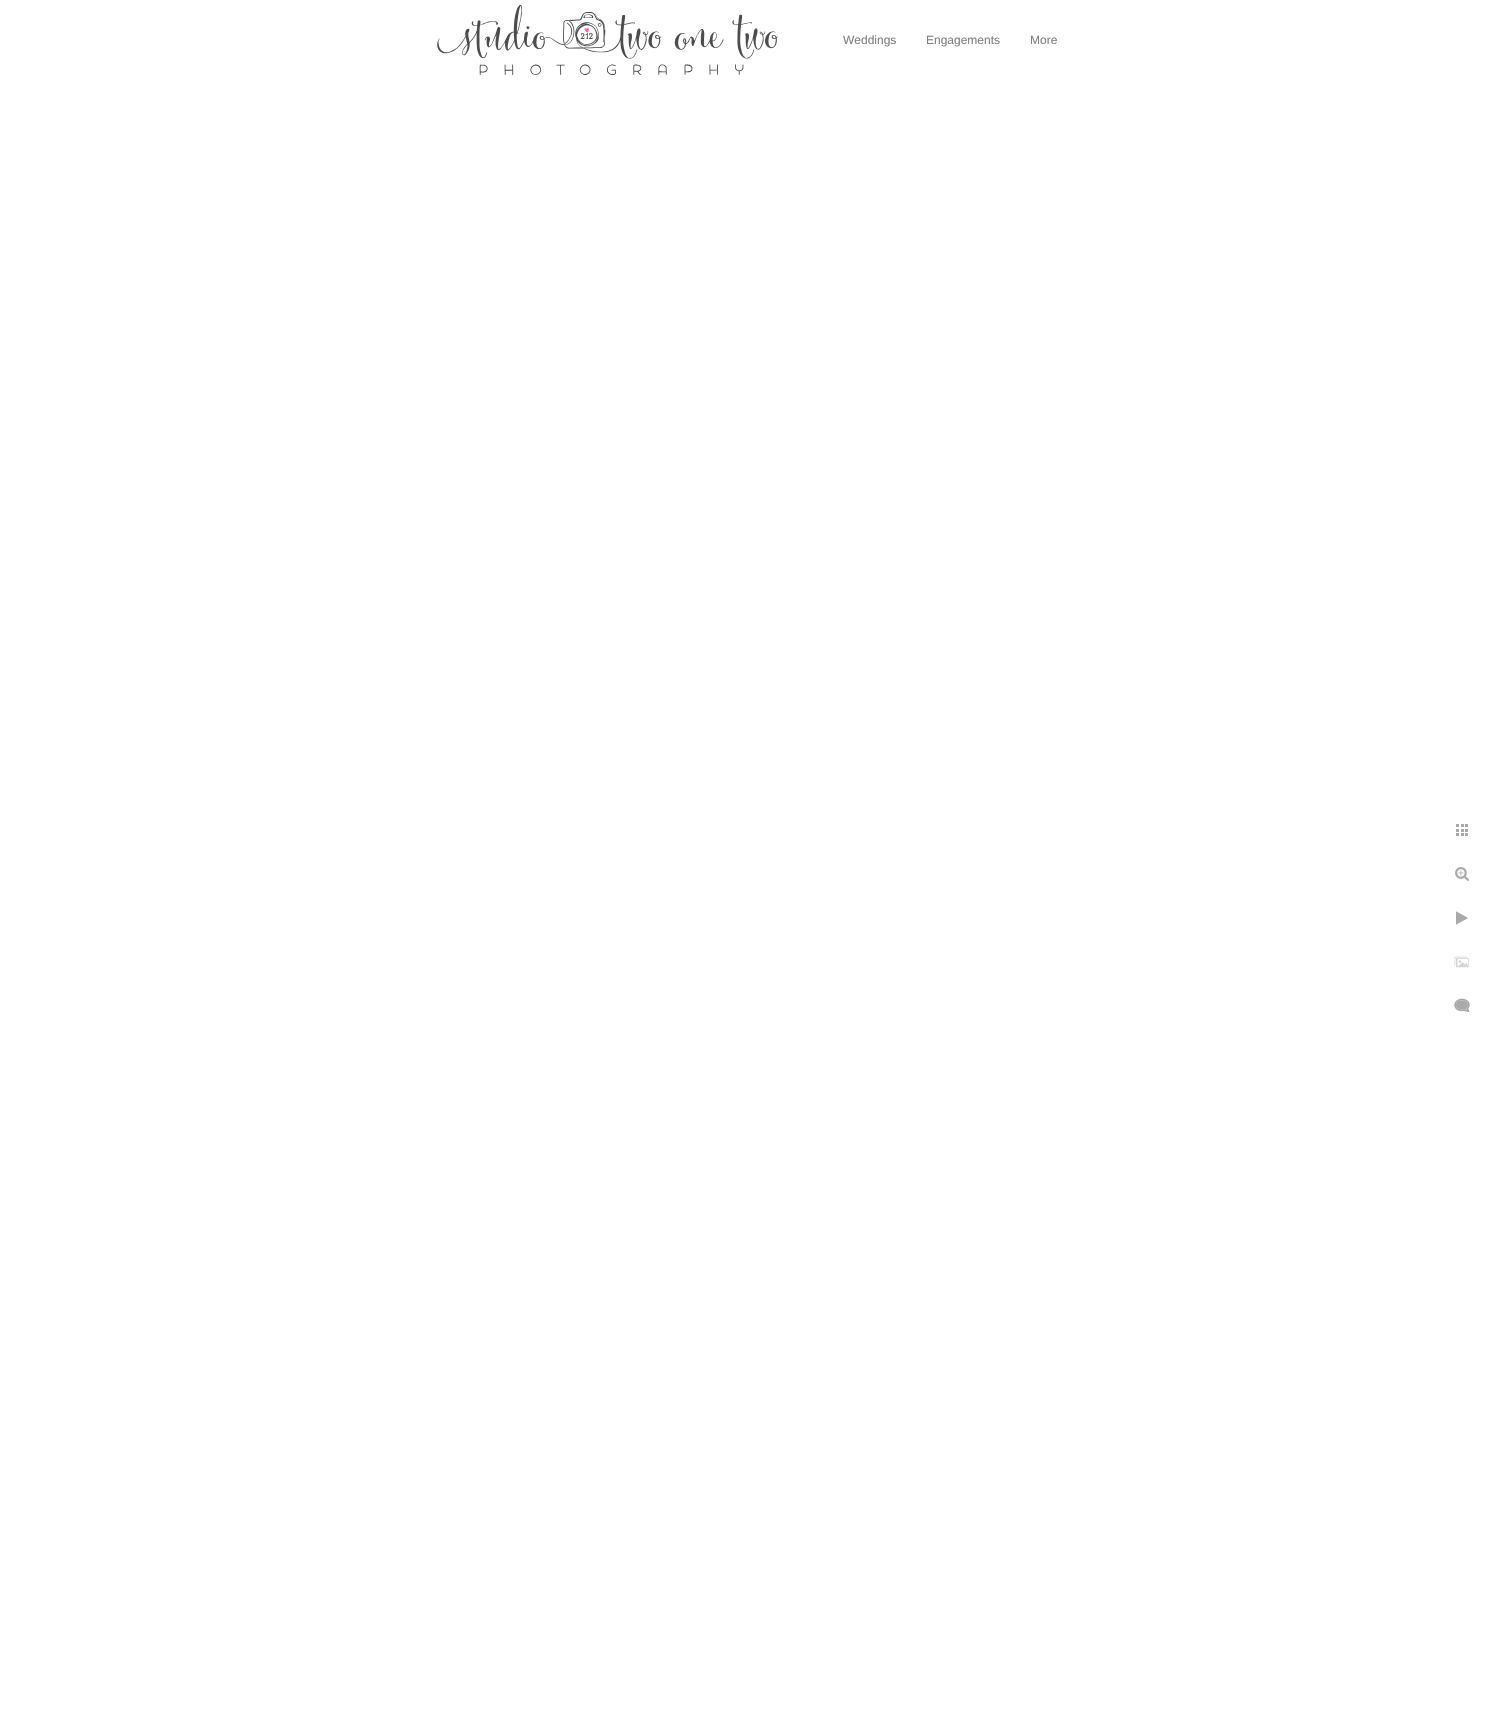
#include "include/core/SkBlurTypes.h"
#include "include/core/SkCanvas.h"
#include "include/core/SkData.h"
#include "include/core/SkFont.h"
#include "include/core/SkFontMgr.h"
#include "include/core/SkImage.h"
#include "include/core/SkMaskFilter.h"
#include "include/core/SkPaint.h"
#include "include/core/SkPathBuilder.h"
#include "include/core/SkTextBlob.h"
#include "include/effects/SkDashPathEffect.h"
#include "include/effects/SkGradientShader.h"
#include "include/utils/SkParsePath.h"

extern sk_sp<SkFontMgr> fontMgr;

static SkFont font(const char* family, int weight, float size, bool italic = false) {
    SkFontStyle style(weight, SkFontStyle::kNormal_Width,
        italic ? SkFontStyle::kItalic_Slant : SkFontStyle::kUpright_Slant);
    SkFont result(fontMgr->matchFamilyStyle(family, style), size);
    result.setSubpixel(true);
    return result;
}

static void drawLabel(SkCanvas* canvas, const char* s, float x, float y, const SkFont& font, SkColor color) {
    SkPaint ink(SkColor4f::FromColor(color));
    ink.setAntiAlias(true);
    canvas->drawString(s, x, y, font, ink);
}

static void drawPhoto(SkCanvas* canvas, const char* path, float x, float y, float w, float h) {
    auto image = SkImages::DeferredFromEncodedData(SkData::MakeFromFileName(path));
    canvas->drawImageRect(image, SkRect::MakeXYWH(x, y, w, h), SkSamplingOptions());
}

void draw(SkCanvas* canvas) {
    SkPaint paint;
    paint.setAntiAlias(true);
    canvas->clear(0xFFFFFFFF);
    drawPhoto(canvas, "assets/img1.png", 437, 5, 341, 70);
    SkFont font1 = font("Liberation Sans", 400, 12);
    drawLabel(canvas, "Weddings", 843, 44, font1, 0xFF808080);
    drawLabel(canvas, "Engagements", 926, 44, font1, 0xFF808080);
    drawLabel(canvas, "More", 1030, 44, font1, 0xFF808080);
    drawPhoto(canvas, "assets/img2.png", 1456, 824, 12, 12);
    drawPhoto(canvas, "assets/img3.png", 1455, 867, 14, 14);
    drawPhoto(canvas, "assets/img4.png", 1456, 911, 12, 14);
    drawPhoto(canvas, "assets/img5.png", 1454, 956, 15, 12);
    drawPhoto(canvas, "assets/img6.png", 1454, 998, 16, 15);
}
